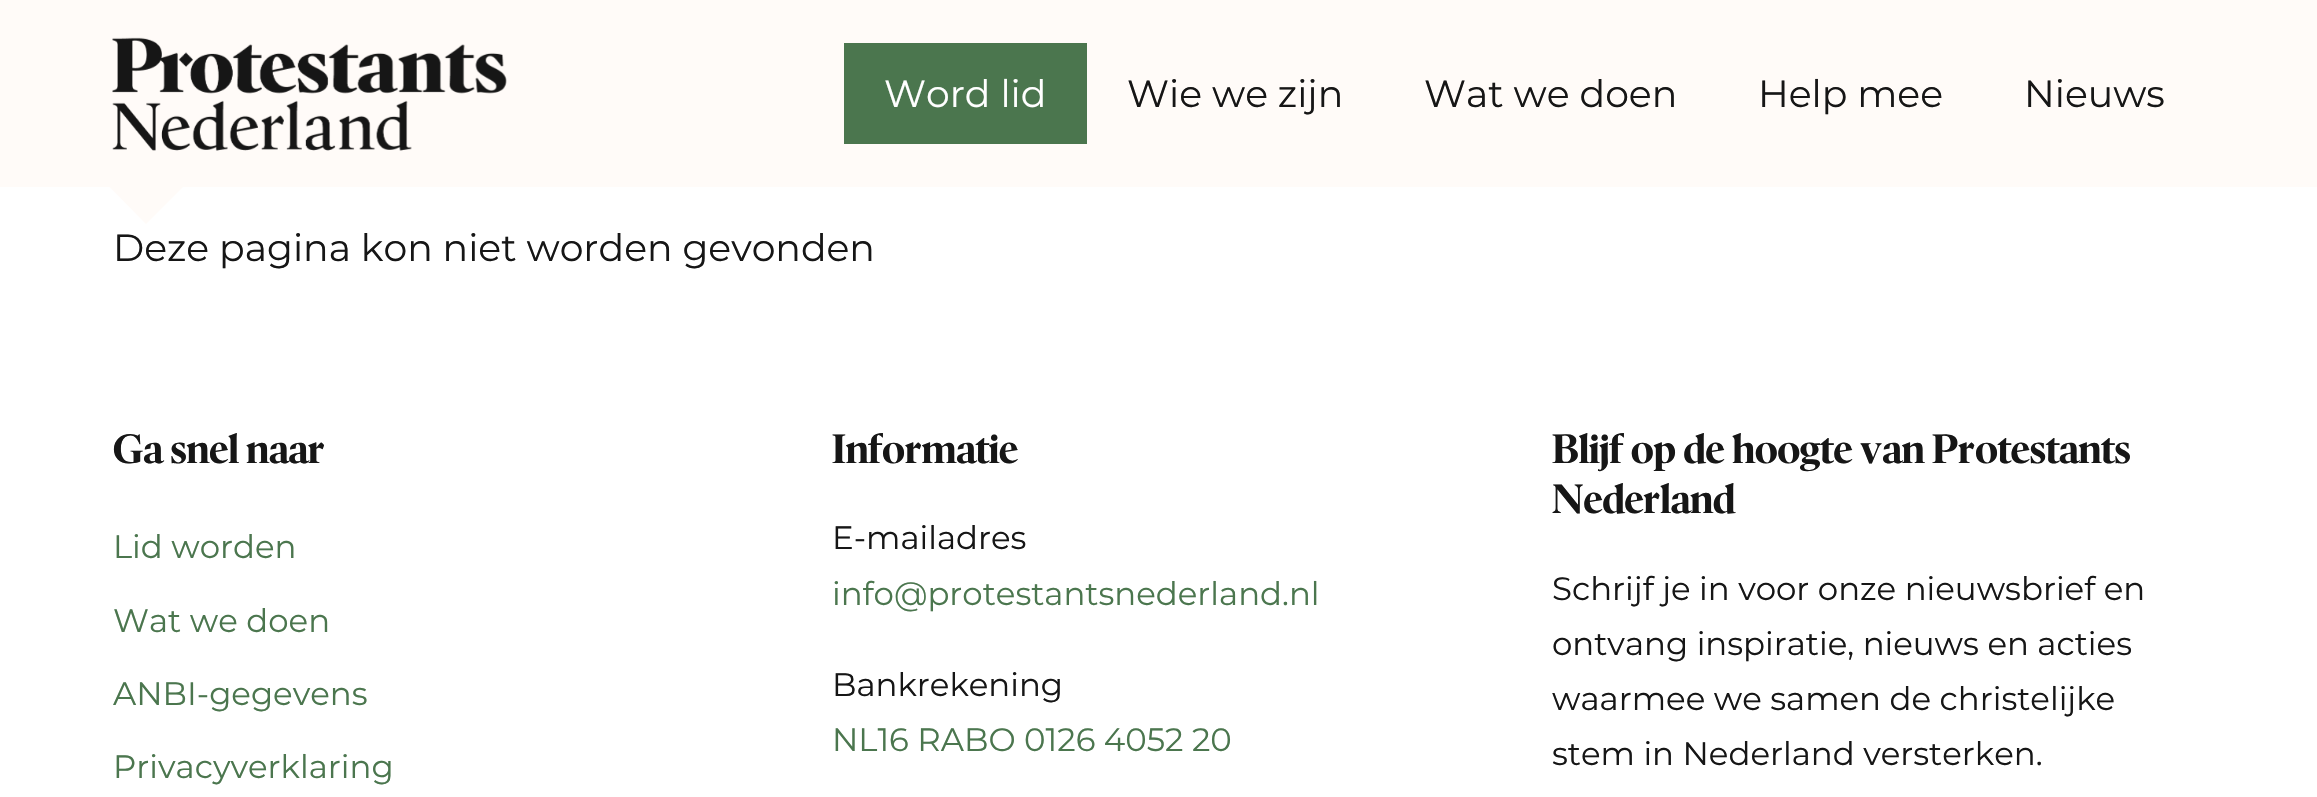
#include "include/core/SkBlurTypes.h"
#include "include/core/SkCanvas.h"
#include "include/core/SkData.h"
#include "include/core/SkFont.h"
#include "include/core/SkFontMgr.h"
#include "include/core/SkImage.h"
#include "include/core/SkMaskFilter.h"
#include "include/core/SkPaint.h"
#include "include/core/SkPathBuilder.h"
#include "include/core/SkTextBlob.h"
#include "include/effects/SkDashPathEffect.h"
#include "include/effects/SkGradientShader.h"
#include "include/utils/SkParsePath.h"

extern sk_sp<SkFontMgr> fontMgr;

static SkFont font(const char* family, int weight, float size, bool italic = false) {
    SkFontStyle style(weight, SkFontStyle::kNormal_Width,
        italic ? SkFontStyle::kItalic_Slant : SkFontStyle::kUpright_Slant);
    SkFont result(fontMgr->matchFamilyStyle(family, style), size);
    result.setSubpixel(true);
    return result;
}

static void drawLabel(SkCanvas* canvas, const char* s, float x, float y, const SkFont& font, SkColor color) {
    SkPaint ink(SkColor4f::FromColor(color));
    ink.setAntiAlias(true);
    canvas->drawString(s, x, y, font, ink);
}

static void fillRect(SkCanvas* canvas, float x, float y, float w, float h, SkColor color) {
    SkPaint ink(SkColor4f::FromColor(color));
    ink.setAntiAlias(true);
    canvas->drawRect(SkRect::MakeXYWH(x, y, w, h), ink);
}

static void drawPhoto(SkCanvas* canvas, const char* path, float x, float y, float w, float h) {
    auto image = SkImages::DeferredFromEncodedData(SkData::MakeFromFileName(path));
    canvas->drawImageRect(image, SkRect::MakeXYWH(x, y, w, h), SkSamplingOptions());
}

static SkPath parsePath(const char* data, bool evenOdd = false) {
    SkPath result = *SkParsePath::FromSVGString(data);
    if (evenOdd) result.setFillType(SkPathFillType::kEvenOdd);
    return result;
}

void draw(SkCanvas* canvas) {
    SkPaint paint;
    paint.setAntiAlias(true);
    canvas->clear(0xFFFFFFFF);
    fillRect(canvas, 0, 0, 2317, 187, 0xFFFFFBF8);
    paint.setColor(0xFFFFFBF8);
    canvas->drawPath(parsePath("M146 129L194 176L146 224L99 176Z"), paint);
    drawPhoto(canvas, "assets/img1.png", 112, 37, 395, 114);
    fillRect(canvas, 844, 43, 243, 101, 0xFF4B764E);
    SkFont font1 = font("Montserrat", 400, 37.8f);
    drawLabel(canvas, "Word lid", 884, 107, font1, 0xFFFFFFFF);
    drawLabel(canvas, "Wie we zijn", 1127, 107, font1, 0xFF161616);
    drawLabel(canvas, "Wat we doen", 1424, 107, font1, 0xFF161616);
    drawLabel(canvas, "Help mee", 1758, 107, font1, 0xFF161616);
    drawLabel(canvas, "Nieuws", 2024, 107, font1, 0xFF161616);
    drawLabel(canvas, "Deze pagina kon niet worden gevonden", 113, 261, font1, 0xFF161616);
    SkFont font2 = font("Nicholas", 700, 42.3f);
    drawLabel(canvas, "Ga snel naar", 113, 463, font2, 0xFF161616);
    SkFont font3 = font("Montserrat", 400, 32.4f);
    drawLabel(canvas, "Lid worden", 113, 558, font3, 0xFF4B764E);
    drawLabel(canvas, "Wat we doen", 113, 632, font3, 0xFF4B764E);
    drawLabel(canvas, "ANBI-gegevens", 113, 705, font3, 0xFF4B764E);
    drawLabel(canvas, "Privacyverklaring", 113, 778, font3, 0xFF4B764E);
    drawLabel(canvas, "Informatie", 832, 463, font2, 0xFF161616);
    drawLabel(canvas, "E-mailadres", 832, 549, font3, 0xFF161616);
    drawLabel(canvas, "info@protestantsnederland.nl", 832, 605, font3, 0xFF4B764E);
    drawLabel(canvas, "Bankrekening", 832, 696, font3, 0xFF161616);
    drawLabel(canvas, "NL16 RABO 0126 4052 20", 832, 751, font3, 0xFF4B764E);
    drawLabel(canvas, "Blijf op de hoogte van Protestants", 1552, 463, font2, 0xFF161616);
    drawLabel(canvas, "Nederland", 1552, 513, font2, 0xFF161616);
    drawLabel(canvas, "Schrijf je in voor onze nieuwsbrief en", 1552, 600, font3, 0xFF161616);
    drawLabel(canvas, "ontvang inspiratie, nieuws en acties", 1552, 655, font3, 0xFF161616);
    drawLabel(canvas, "waarmee we samen de christelijke", 1552, 710, font3, 0xFF161616);
    drawLabel(canvas, "stem in Nederland versterken.", 1552, 765, font3, 0xFF161616);
}
